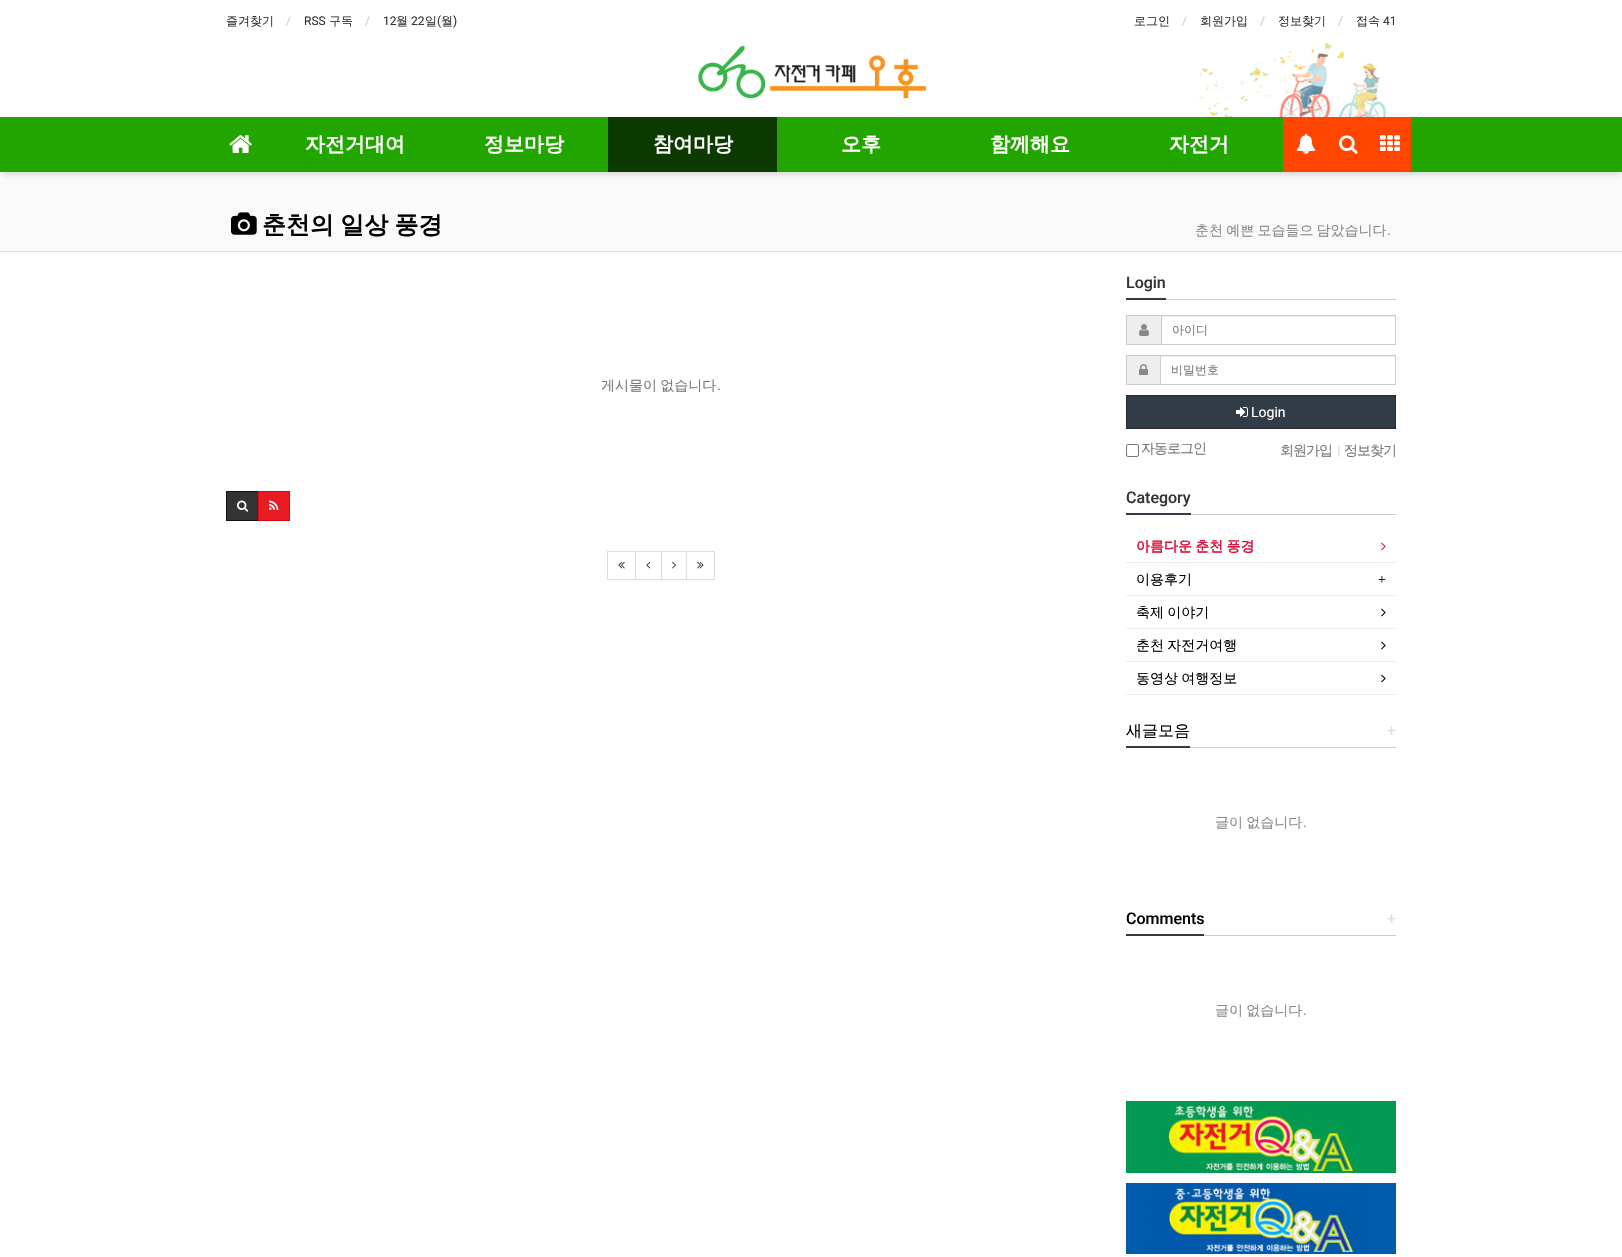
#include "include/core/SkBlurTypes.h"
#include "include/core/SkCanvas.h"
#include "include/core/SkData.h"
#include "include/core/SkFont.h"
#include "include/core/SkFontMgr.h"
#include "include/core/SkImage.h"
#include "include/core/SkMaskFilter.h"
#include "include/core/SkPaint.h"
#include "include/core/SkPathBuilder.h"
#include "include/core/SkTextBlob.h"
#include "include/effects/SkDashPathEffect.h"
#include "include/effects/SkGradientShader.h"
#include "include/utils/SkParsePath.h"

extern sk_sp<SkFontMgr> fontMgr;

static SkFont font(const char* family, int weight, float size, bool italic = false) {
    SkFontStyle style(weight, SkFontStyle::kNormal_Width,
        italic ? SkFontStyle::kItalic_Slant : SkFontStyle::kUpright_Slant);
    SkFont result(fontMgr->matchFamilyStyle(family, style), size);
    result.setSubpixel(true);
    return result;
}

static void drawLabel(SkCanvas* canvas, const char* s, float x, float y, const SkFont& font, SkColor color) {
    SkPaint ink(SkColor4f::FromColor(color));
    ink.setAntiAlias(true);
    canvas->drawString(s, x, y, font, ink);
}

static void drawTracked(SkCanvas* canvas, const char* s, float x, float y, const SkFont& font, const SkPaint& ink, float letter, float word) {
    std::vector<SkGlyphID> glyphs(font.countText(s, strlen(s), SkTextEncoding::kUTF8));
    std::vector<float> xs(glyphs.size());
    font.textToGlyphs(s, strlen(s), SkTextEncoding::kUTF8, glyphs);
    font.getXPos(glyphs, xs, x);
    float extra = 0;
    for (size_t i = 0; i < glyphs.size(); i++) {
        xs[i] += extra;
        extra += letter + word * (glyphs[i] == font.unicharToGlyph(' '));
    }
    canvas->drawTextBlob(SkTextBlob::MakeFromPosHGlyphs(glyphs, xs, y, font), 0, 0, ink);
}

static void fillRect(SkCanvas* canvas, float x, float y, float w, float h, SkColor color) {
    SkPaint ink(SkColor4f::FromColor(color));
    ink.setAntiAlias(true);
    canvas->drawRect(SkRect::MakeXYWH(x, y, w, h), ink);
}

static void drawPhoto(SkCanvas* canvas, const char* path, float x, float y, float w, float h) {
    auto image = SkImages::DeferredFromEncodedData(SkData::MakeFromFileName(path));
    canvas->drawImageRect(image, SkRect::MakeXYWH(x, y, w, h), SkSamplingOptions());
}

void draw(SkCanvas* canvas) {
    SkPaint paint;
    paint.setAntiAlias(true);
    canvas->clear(0xFFFFFFFF);
    SkFont font1 = font("WenQuanYi Zen Hei", 500, 12);
    drawLabel(canvas, "즐겨찾기", 226, 25, font1, 0xFF333333);
    SkFont font2 = font("Roboto", 400, 12);
    drawLabel(canvas, "/", 286, 25, font2, 0xFFCCCCCC);
    drawLabel(canvas, "RSS", 304, 25, font2, 0xFF333333);
    drawLabel(canvas, "구독", 329, 25, font1, 0xFF333333);
    drawLabel(canvas, "/", 365, 25, font2, 0xFFCCCCCC);
    drawLabel(canvas, "12", 383, 25, font2, 0xFF333333);
    drawLabel(canvas, "월", 396, 25, font1, 0xFF333333);
    drawLabel(canvas, "22", 411, 25, font2, 0xFF333333);
    drawLabel(canvas, "일", 425, 25, font1, 0xFF333333);
    drawLabel(canvas, "(", 437, 25, font2, 0xFF333333);
    drawLabel(canvas, "월", 441, 25, font1, 0xFF333333);
    drawLabel(canvas, ")", 453, 25, font2, 0xFF333333);
    drawLabel(canvas, "로그인", 1134, 25, font1, 0xFF333333);
    drawLabel(canvas, "/", 1182, 25, font2, 0xFFCCCCCC);
    drawLabel(canvas, "회원가입", 1200, 25, font1, 0xFF333333);
    drawLabel(canvas, "/", 1260, 25, font2, 0xFFCCCCCC);
    drawLabel(canvas, "정보찾기", 1278, 25, font1, 0xFF333333);
    drawLabel(canvas, "/", 1338, 25, font2, 0xFFCCCCCC);
    drawLabel(canvas, "접속", 1356, 25, font1, 0xFF333333);
    drawLabel(canvas, "41", 1383, 25, font2, 0xFF333333);
    drawPhoto(canvas, "assets/img1.png", 1198, 43, 188, 74);
    drawPhoto(canvas, "assets/img2.png", 698, 45, 228, 54);
    fillRect(canvas, 0, 172, 1622, 79, 0xFFFAFAFA);
    paint.setColor(0x26191919);
    paint.setMaskFilter(SkMaskFilter::MakeBlur(kNormal_SkBlurStyle, 2.5f));
    canvas->drawRect(SkRect::MakeXYWH(2, 124, 1618, 51), paint);
    paint.setMaskFilter(nullptr);
    fillRect(canvas, 0, 117, 1622, 55, 0xFF23A500);
    drawPhoto(canvas, "assets/img3.png", 229, 135, 23, 18);
    SkFont font3 = font("WenQuanYi Zen Hei", 700, 20);
    drawLabel(canvas, "자전거대여", 305, 151, font3, 0xFFFFFFFF);
    drawLabel(canvas, "정보마당", 484, 151, font3, 0xFFFFFFFF);
    fillRect(canvas, 608, 117, 169, 55, 0xFF0C3A00);
    drawLabel(canvas, "참여마당", 653, 151, font3, 0xFFFFFFFF);
    drawLabel(canvas, "오후", 841, 151, font3, 0xFFFFFFFF);
    drawLabel(canvas, "함께해요", 990, 151, font3, 0xFFFFFFFF);
    drawLabel(canvas, "자전거", 1169, 151, font3, 0xFFFFFFFF);
    fillRect(canvas, 1283, 117, 128, 55, 0xFFFF4500);
    drawPhoto(canvas, "assets/img4.png", 1296, 133, 20, 21);
    drawPhoto(canvas, "assets/img5.png", 1339, 135, 19, 19);
    drawPhoto(canvas, "assets/img6.png", 1380, 135, 20, 16);
    fillRect(canvas, 0, 251, 1622, 1, 0xFFDFDFDF);
    drawPhoto(canvas, "assets/img7.png", 231, 212, 26, 23);
    SkFont font4 = font("WenQuanYi Zen Hei", 700, 24);
    paint.setColor(0xFF000000);
    drawTracked(canvas, "춘천의 일상 풍경", 262, 233, font4, paint, 0, -1);
    SkFont font5 = font("WenQuanYi Zen Hei", 500, 14);
    paint.setColor(0xFF888888);
    drawTracked(canvas, "춘천 예쁜 모습들으 담았습니다", 1195, 235, font5, paint, 0, -1);
    SkFont font6 = font("Roboto", 400, 14);
    drawLabel(canvas, ".", 1387, 235, font6, 0xFF888888);
    paint.setColor(0xFF777777);
    drawTracked(canvas, "게시물이 없습니다", 601, 390, font5, paint, 0, -1);
    drawLabel(canvas, ".", 717, 390, font6, 0xFF777777);
    paint.setColor(0xFF333333);
    canvas->drawRect(SkRect::MakeXYWH(226.5f, 491.5f, 32, 29), paint);
    paint.setStroke(true);
    paint.setStrokeWidth(1);
    paint.setColor(0xFF111111);
    canvas->drawRect(SkRect::MakeXYWH(226.5f, 491.5f, 32, 29), paint);
    drawPhoto(canvas, "assets/img8.png", 237, 500, 12, 12);
    paint.setStroke(false);
    paint.setColor(0xFFE91B23);
    canvas->drawRect(SkRect::MakeXYWH(258.5f, 491.5f, 31, 29), paint);
    paint.setStroke(true);
    paint.setColor(0xFFD5070F);
    canvas->drawRect(SkRect::MakeXYWH(258.5f, 491.5f, 31, 29), paint);
    drawPhoto(canvas, "assets/img9.png", 269, 500, 10, 10);
    paint.setColor(0xFFDDDDDD);
    canvas->drawRect(SkRect::MakeXYWH(607.5f, 551.5f, 28, 28), paint);
    drawPhoto(canvas, "assets/img10.png", 618, 561, 7, 8);
    canvas->drawRect(SkRect::MakeXYWH(635.5f, 551.5f, 26, 28), paint);
    drawPhoto(canvas, "assets/img11.png", 646, 561, 5, 8);
    canvas->drawRect(SkRect::MakeXYWH(661.5f, 551.5f, 25, 28), paint);
    drawPhoto(canvas, "assets/img12.png", 672, 561, 4, 8);
    canvas->drawRect(SkRect::MakeXYWH(686.5f, 551.5f, 28, 28), paint);
    drawPhoto(canvas, "assets/img13.png", 697, 561, 7, 8);
    fillRect(canvas, 1166, 299, 230, 1, 0xFFCCCCCC);
    fillRect(canvas, 1126, 298, 40, 2, 0xFF323C46);
    SkFont font7 = font("Roboto", 500, 16);
    drawLabel(canvas, "Login", 1126, 288, font7, 0xFF333333);
    fillRect(canvas, 1127, 316, 34, 28, 0xFFEEEEEE);
    fillRect(canvas, 1126, 315, 35, 1, 0xFFCCCCCC);
    fillRect(canvas, 1126, 344, 35, 1, 0xFFCCCCCC);
    fillRect(canvas, 1126, 315, 1, 30, 0xFFCCCCCC);
    drawPhoto(canvas, "assets/img14.png", 1139, 324, 10, 12);
    fillRect(canvas, 1162, 316, 233, 1, 0xFFECECEC);
    paint.setColor(0xFFCCCCCC);
    canvas->drawRect(SkRect::MakeXYWH(1161.5f, 315.5f, 234, 29), paint);
    drawLabel(canvas, "아이디", 1172, 334, font1, 0xFF777777);
    fillRect(canvas, 1127, 356, 33, 28, 0xFFEEEEEE);
    fillRect(canvas, 1126, 355, 34, 1, 0xFFCCCCCC);
    fillRect(canvas, 1126, 384, 34, 1, 0xFFCCCCCC);
    fillRect(canvas, 1126, 355, 1, 30, 0xFFCCCCCC);
    drawPhoto(canvas, "assets/img15.png", 1139, 364, 9, 11);
    fillRect(canvas, 1161, 356, 234, 1, 0xFFECECEC);
    canvas->drawRect(SkRect::MakeXYWH(1160.5f, 355.5f, 235, 29), paint);
    drawLabel(canvas, "비밀번호", 1171, 374, font1, 0xFF777777);
    paint.setStroke(false);
    paint.setColor(0xFF323C46);
    canvas->drawRect(SkRect::MakeXYWH(1126.5f, 395.5f, 269, 33), paint);
    paint.setStroke(true);
    paint.setColor(0xFF282832);
    canvas->drawRect(SkRect::MakeXYWH(1126.5f, 395.5f, 269, 33), paint);
    drawPhoto(canvas, "assets/img16.png", 1236, 407, 12, 10);
    drawLabel(canvas, "Login", 1251, 417, font6, 0xFFFFFFFF);
    paint.setColor(0xFF767676);
    canvas->drawRoundRect(SkRect::MakeXYWH(1126.5f, 444.5f, 12, 12), 1.5f, 1.5f, paint);
    paint.setStroke(false);
    paint.setColor(0xFF777777);
    drawTracked(canvas, "자동로그인", 1141, 453, font5, paint, -1, 0);
    drawTracked(canvas, "회원가입", 1280, 455, font5, paint, -1, 0);
    paint.setColor(0xFFDDDDDD);
    drawTracked(canvas, "|", 1337, 455, font6, paint, -1, 0);
    paint.setColor(0xFF777777);
    drawTracked(canvas, "정보찾기", 1344, 455, font5, paint, -1, 0);
    fillRect(canvas, 1191, 514, 205, 1, 0xFFCCCCCC);
    fillRect(canvas, 1126, 513, 65, 2, 0xFF323C46);
    drawLabel(canvas, "Category", 1126, 503, font7, 0xFF333333);
    fillRect(canvas, 1126, 562, 270, 1, 0xFFEEEEEE);
    SkFont font8 = font("WenQuanYi Zen Hei", 700, 14);
    paint.setColor(0xFFDC143C);
    drawTracked(canvas, "아름다운 춘천 풍경", 1136, 551, font8, paint, 0, -1);
    drawPhoto(canvas, "assets/img17.png", 1381, 542, 5, 9);
    fillRect(canvas, 1126, 595, 270, 1, 0xFFEEEEEE);
    drawLabel(canvas, "이용후기", 1136, 584, font5, 0xFF000000);
    SkFont font9 = font("Liberation Serif", 400, 14);
    drawLabel(canvas, "+", 1378, 584, font9, 0xFF000000);
    fillRect(canvas, 1126, 628, 270, 1, 0xFFEEEEEE);
    paint.setColor(0xFF000000);
    drawTracked(canvas, "축제 이야기", 1136, 617, font5, paint, 0, -1);
    drawPhoto(canvas, "assets/img18.png", 1381, 608, 5, 9);
    fillRect(canvas, 1126, 661, 270, 1, 0xFFEEEEEE);
    drawTracked(canvas, "춘천 자전거여행", 1136, 650, font5, paint, 0, -1);
    drawPhoto(canvas, "assets/img18.png", 1381, 641, 5, 9);
    fillRect(canvas, 1126, 694, 270, 1, 0xFFEEEEEE);
    drawTracked(canvas, "동영상 여행정보", 1136, 683, font5, paint, 0, -1);
    drawPhoto(canvas, "assets/img18.png", 1381, 674, 5, 9);
    fillRect(canvas, 1190, 747, 206, 1, 0xFFCCCCCC);
    fillRect(canvas, 1126, 746, 64, 2, 0xFF323C46);
    SkFont font10 = font("WenQuanYi Zen Hei", 500, 16);
    drawLabel(canvas, "새글모음", 1126, 736, font10, 0xFF000000);
    SkFont font11 = font("Roboto", 400, 16);
    drawLabel(canvas, "+", 1387, 736, font11, 0xFFDDDDDD);
    paint.setColor(0xFF888888);
    drawTracked(canvas, "글이 없습니다", 1215, 827, font5, paint, 0, -1);
    drawLabel(canvas, ".", 1303, 827, font6, 0xFF888888);
    fillRect(canvas, 1204, 935, 192, 1, 0xFFCCCCCC);
    fillRect(canvas, 1126, 934, 78, 2, 0xFF323C46);
    drawLabel(canvas, "Comments", 1126, 924, font7, 0xFF000000);
    drawLabel(canvas, "+", 1387, 924, font11, 0xFFDDDDDD);
    drawTracked(canvas, "글이 없습니다", 1215, 1015, font5, paint, 0, -1);
    drawLabel(canvas, ".", 1303, 1015, font6, 0xFF888888);
    drawPhoto(canvas, "assets/img19.png", 1126, 1101, 270, 72);
    drawPhoto(canvas, "assets/img20.png", 1126, 1183, 270, 71);
}
